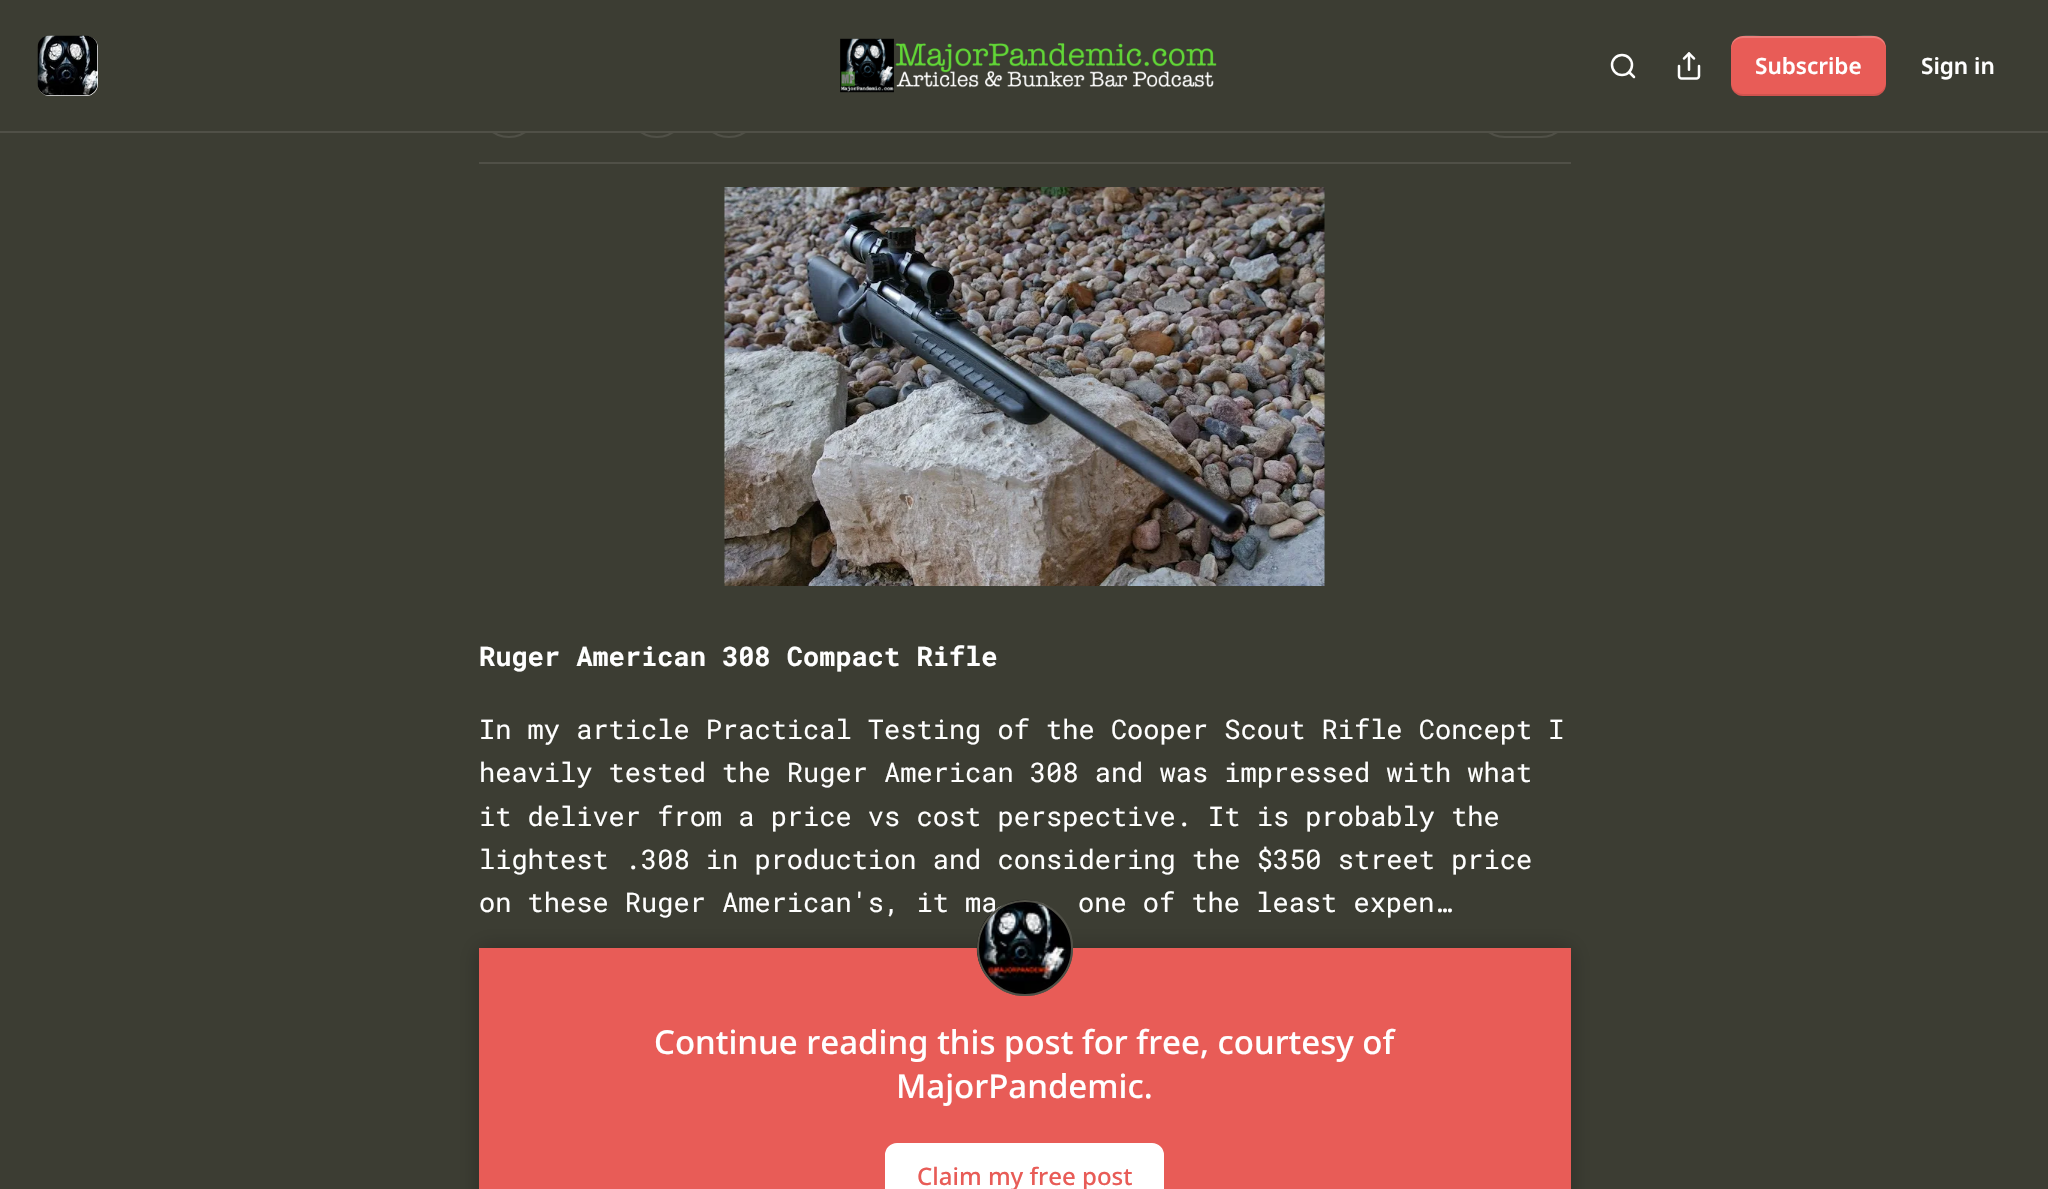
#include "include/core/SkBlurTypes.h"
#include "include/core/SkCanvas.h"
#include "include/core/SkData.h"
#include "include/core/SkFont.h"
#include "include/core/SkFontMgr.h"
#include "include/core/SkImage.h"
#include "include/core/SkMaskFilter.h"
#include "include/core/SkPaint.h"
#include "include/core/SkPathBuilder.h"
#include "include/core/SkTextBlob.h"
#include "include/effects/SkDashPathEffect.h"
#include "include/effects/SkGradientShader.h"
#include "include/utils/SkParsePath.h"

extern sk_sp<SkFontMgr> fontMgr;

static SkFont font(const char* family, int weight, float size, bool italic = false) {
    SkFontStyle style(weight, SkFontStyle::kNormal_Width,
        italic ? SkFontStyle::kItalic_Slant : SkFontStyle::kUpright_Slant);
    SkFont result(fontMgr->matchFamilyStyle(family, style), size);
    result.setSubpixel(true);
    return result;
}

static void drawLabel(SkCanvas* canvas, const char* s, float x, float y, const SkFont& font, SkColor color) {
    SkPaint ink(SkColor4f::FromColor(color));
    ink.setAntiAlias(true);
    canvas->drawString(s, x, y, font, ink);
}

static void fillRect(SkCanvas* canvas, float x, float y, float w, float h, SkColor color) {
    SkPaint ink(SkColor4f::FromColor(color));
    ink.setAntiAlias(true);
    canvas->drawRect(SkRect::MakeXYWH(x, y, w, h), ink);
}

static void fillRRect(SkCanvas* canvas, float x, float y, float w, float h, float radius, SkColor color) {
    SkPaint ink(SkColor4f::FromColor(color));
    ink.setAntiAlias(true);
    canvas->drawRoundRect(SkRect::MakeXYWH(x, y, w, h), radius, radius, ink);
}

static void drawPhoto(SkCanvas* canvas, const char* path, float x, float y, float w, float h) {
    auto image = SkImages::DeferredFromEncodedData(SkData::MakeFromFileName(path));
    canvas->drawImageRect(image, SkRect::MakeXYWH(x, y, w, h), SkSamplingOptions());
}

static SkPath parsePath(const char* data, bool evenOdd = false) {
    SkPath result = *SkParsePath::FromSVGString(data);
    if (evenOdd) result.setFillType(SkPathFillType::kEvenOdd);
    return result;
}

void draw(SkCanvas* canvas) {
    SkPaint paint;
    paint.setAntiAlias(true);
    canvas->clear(0xFF3C3D33);
    paint.setStroke(true);
    paint.setStrokeWidth(2);
    paint.setColor(0xFF505047);
    canvas->drawCircle(509, 108, 29, paint);
    canvas->drawCircle(657, 108, 29, paint);
    canvas->drawCircle(729, 108, 29, paint);
    canvas->drawRoundRect(SkRect::MakeXYWH(1476, 79, 94, 58), 29, 29, paint);
    fillRect(canvas, 479, 78, 1092, 53, 0xFF3C3D33);
    fillRect(canvas, 0, 131, 2048, 2, 0xFF505047);
    fillRRect(canvas, 38, 36, 60, 60, 12, 0xFFFFFFFF);
    drawPhoto(canvas, "assets/img1.png", 37, 35, 61, 61);
    drawPhoto(canvas, "assets/img2.png", 840, 38, 377, 55);
    paint.setStrokeWidth(2.5f);
    paint.setColor(0xFFFFFFFF);
    canvas->drawCircle(1622, 65, 10, paint);
    paint.setStrokeCap(SkPaint::kRound_Cap);
    paint.setStrokeJoin(SkPaint::kRound_Join);
    canvas->drawPath(parsePath("M1634 77L1629 72"), paint);
    drawPhoto(canvas, "assets/img3.png", 1677, 52, 24, 28);
    fillRRect(canvas, 1731, 36, 155, 60, 12, 0xFFE85C57);
    paint.setStroke(false);
    paint.setColor(0x1A000000);
    canvas->drawPath(parsePath("M1731 82C1731 101 1751 96 1765 96H1852C1866 96 1886 101 1886 82C1886 89 1880 94 1874 94H1743C1736 94 1731 89 1731 82Z"), paint);
    paint.setColor(0x33FFFFFF);
    canvas->drawPath(parsePath("M1743 38H1874C1880 38 1886 43 1886 50C1886 31 1866 36 1852 36H1765C1751 36 1731 31 1731 50C1731 43 1736 38 1743 38Z"), paint);
    SkFont font1 = font("Noto Sans", 600, 22.5f);
    drawLabel(canvas, "Subscribe", 1755, 74, font1, 0xFFFFFFFF);
    drawLabel(canvas, "Sign in", 1921, 74, font1, 0xFFFFFFFF);
    fillRect(canvas, 479, 162, 1092, 2, 0xFF505047);
    drawPhoto(canvas, "assets/img4.png", 724, 187, 601, 399);
    SkFont font2 = font("Roboto Mono", 700, 27);
    drawLabel(canvas, "Ruger American 308 Compact Rifle", 479, 666, font2, 0xFFFFFFFF);
    SkFont font3 = font("Roboto Mono", 400, 27);
    drawLabel(canvas, "In my article Practical Testing of the Cooper Scout Rifle Concept I", 479, 739, font3, 0xFFFFFFFF);
    drawLabel(canvas, "heavily tested the Ruger American 308 and was impressed with what", 479, 782, font3, 0xFFFFFFFF);
    drawLabel(canvas, "it deliver from a price vs cost perspective. It is probably the", 479, 826, font3, 0xFFFFFFFF);
    drawLabel(canvas, "lightest .308 in production and considering the $350 street price", 479, 869, font3, 0xFFFFFFFF);
    drawLabel(canvas, "on these Ruger American's, it ma", 479, 912, font3, 0xFFFFFFFF);
    drawLabel(canvas, "one of the least expen…", 1078, 912, font3, 0xFFFFFFFF);
    fillRect(canvas, 479, 948, 1092, 241, 0xFFE85C57);
    paint.setColor(0xFFFFFFFF);
    canvas->drawRoundRect(SkRect::MakeXYWH(886, 1144, 277, 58), 11, 11, paint);
    paint.setStroke(true);
    paint.setStrokeWidth(2);
    paint.setStrokeCap(SkPaint::kButt_Cap);
    paint.setStrokeJoin(SkPaint::kMiter_Join);
    canvas->drawRoundRect(SkRect::MakeXYWH(886, 1144, 277, 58), 11, 11, paint);
    canvas->save();
    canvas->clipPath(parsePath("M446 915H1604V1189H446ZM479 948H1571V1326H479Z", true), true);
    paint.setStroke(false);
    paint.setColor(0x40000000);
    paint.setMaskFilter(SkMaskFilter::MakeBlur(kNormal_SkBlurStyle, 10.5f));
    canvas->drawRect(SkRect::MakeXYWH(479, 948, 1092, 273), paint);
    paint.setMaskFilter(nullptr);
    canvas->restore();
    paint.setStroke(true);
    paint.setColor(0xFF505047);
    canvas->drawCircle(1025, 948, 47, paint);
    drawPhoto(canvas, "assets/img5.png", 976, 899, 97, 97);
    canvas->drawCircle(1025, 948, 47, paint);
    SkFont font4 = font("Noto Sans", 500, 33);
    drawLabel(canvas, "Continue reading this post for free, courtesy of", 654, 1054, font4, 0xFFFFFFFF);
    drawLabel(canvas, "MajorPandemic.", 896, 1098, font4, 0xFFFFFFFF);
    SkFont font5 = font("Noto Sans", 500, 24);
    drawLabel(canvas, "Claim my free post", 917, 1185, font5, 0xFFE85C57);
}
